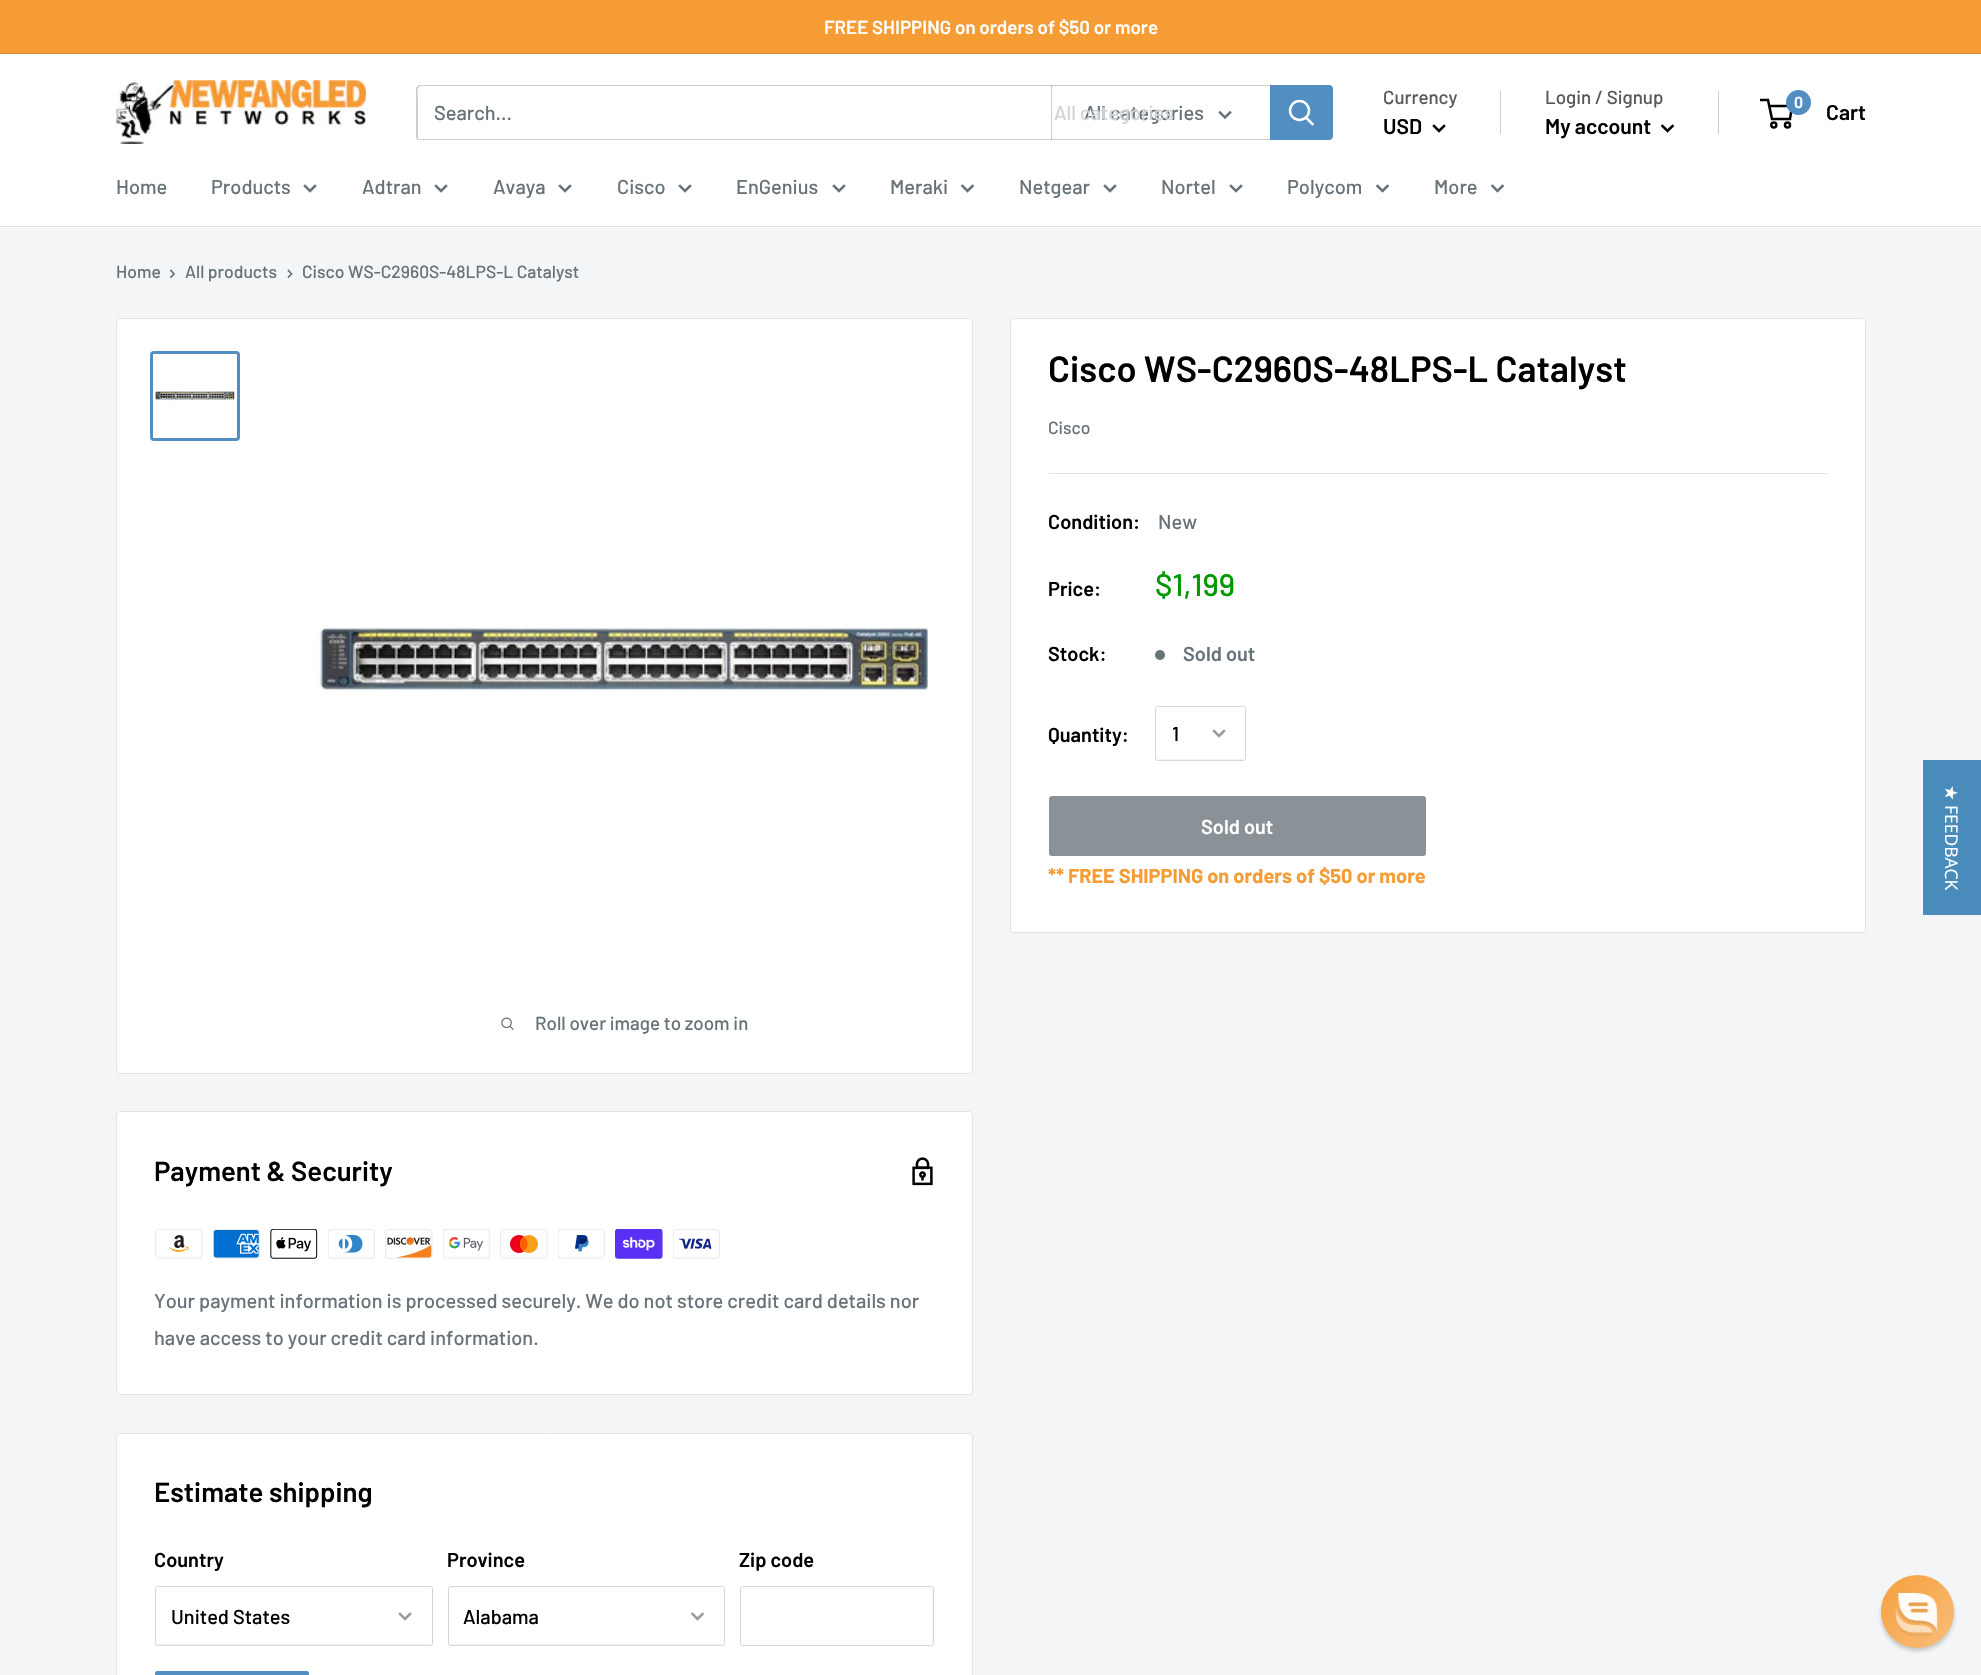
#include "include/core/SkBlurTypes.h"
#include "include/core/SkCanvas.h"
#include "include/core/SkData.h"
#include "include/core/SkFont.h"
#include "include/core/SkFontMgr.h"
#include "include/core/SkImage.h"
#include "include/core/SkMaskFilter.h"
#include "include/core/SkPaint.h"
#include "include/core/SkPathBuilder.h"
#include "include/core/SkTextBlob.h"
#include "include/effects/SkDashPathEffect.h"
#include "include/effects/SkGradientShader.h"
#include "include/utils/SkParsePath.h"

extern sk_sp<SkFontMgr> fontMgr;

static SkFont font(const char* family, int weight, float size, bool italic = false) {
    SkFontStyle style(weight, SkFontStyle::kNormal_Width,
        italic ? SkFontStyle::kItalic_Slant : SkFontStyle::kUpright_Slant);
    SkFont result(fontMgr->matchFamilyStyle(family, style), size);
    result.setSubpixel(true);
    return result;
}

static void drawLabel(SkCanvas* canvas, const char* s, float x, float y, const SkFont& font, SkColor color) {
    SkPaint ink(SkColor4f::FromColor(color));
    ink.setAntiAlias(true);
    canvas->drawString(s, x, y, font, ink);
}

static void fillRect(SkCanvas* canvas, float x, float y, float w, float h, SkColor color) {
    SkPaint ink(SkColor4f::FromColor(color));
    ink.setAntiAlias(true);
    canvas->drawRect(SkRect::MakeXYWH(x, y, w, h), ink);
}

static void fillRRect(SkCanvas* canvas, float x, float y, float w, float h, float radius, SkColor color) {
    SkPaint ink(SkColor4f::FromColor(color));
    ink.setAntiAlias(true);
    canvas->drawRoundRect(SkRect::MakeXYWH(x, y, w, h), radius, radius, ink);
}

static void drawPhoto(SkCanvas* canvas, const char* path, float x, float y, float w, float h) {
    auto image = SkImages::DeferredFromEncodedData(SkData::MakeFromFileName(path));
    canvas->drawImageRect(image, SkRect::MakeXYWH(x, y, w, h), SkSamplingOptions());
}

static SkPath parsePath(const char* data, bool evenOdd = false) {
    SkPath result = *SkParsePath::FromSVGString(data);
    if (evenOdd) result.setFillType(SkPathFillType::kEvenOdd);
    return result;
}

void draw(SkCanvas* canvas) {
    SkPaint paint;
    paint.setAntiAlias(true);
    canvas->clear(0xFFF3F5F6);
    fillRect(canvas, 0, 0, 1981, 53, 0xFFF69C34);
    fillRect(canvas, 0, 53, 1981, 1, 0xFFC7883F);
    SkFont font1 = font("Barlow", 600, 18.75f);
    drawLabel(canvas, "FREE SHIPPING on orders of $50 or more", 824, 34, font1, 0xFFFFFFFF);
    fillRect(canvas, 0, 54, 1981, 174, 0xFFFFFFFF);
    drawPhoto(canvas, "assets/img1.png", 116, 80, 250, 64);
    paint.setColor(0xFFCDCDCD);
    canvas->drawPath(parsePath("M417 138C417 139 419 140 420 140H1329C1331 140 1333 138 1333 136V89C1333 87 1332 86 1331 85V88V135C1331 137 1330 139 1328 139H419Z"), paint);
    paint.setColor(0x4D585858);
    canvas->drawPath(parsePath("M421 86H1330L1332 87C1332 86 1330 85 1329 85H420C418 85 416 87 416 89V136C416 138 417 139 418 140V98C418 97 416 86 421 86Z"), paint);
    SkFont font2 = font("Barlow", 500, 20);
    drawLabel(canvas, "Search...", 434, 120, font2, 0xFF677279);
    fillRect(canvas, 1051, 85, 1, 55, 0x4D585858);
    drawLabel(canvas, "All categories", 1084, 120, font2, 0xFF677279);
    drawLabel(canvas, "All categories", 1054, 120, font2, 0xFFD2D5D7);
    paint.setStroke(true);
    paint.setStrokeWidth(2.5f);
    paint.setStrokeCap(SkPaint::kSquare_Cap);
    paint.setColor(0xFF677279);
    canvas->drawPath(parsePath("M1230 112.5L1225 117.5L1220 112.5"), paint);
    paint.setStroke(false);
    paint.setColor(0xFF528EC1);
    canvas->drawPath(parsePath("M1270 85H1329C1331 85 1333 87 1333 89V136C1333 138 1331 140 1329 140H1270Z"), paint);
    paint.setStroke(true);
    paint.setColor(0xFFFFFFFF);
    canvas->drawPath(parsePath("M1312.5 124L1306 117.5"), paint);
    paint.setStrokeCap(SkPaint::kButt_Cap);
    canvas->drawCircle(1299.5f, 110.5f, 9.5f, paint);
    SkFont font3 = font("Barlow", 500, 18.75f);
    drawLabel(canvas, "Currency", 1383, 104, font3, 0xFF585858);
    fillRect(canvas, 1500, 91, 1, 43, 0xFFCDCDCD);
    SkFont font4 = font("Barlow", 600, 21.25f);
    drawLabel(canvas, "USD", 1383, 134, font4, 0xFF000000);
    paint.setStrokeCap(SkPaint::kSquare_Cap);
    paint.setColor(0xFF000000);
    canvas->drawPath(parsePath("M1444 126L1439 131L1434 126"), paint);
    drawLabel(canvas, "Login / Signup", 1545, 104, font3, 0xFF585858);
    fillRect(canvas, 1718, 91, 1, 43, 0xFFCDCDCD);
    drawLabel(canvas, "My account", 1545, 134, font4, 0xFF000000);
    canvas->drawPath(parsePath("M1672.5 126L1667.5 131L1662.5 126"), paint);
    paint.setStrokeCap(SkPaint::kButt_Cap);
    canvas->drawCircle(1773.8f, 125, 2.5f, paint);
    canvas->drawCircle(1787.5f, 125, 2.5f, paint);
    canvas->drawPath(parsePath("M1769 106H1792L1790 119H1772L1768 100H1760"), paint);
    paint.setStroke(false);
    paint.setColor(0xFF528EC1);
    canvas->drawCircle(1798.5f, 102.5f, 12.5f, paint);
    SkFont font5 = font("Barlow", 600, 16);
    drawLabel(canvas, "0", 1794, 108, font5, 0xFFFFFFFF);
    drawLabel(canvas, "Cart", 1826, 120, font4, 0xFF000000);
    fillRect(canvas, 0, 226, 1981, 1, 0xFFE1E3E4);
    drawLabel(canvas, "Home", 116, 194, font2, 0xFF677279);
    drawLabel(canvas, "Products", 211, 194, font2, 0xFF677279);
    paint.setStroke(true);
    paint.setStrokeCap(SkPaint::kSquare_Cap);
    paint.setColor(0xFF677279);
    canvas->drawPath(parsePath("M315 186L310 191L305 186"), paint);
    drawLabel(canvas, "Adtran", 362, 194, font2, 0xFF677279);
    canvas->drawPath(parsePath("M446 186L441 191L436 186"), paint);
    drawLabel(canvas, "Avaya", 493, 194, font2, 0xFF677279);
    canvas->drawPath(parsePath("M570 186L565 191L560 186"), paint);
    drawLabel(canvas, "Cisco", 617, 194, font2, 0xFF677279);
    canvas->drawPath(parsePath("M690 186L685 191L680 186"), paint);
    drawLabel(canvas, "EnGenius", 736, 194, font2, 0xFF677279);
    canvas->drawPath(parsePath("M844 186L839 191L834 186"), paint);
    drawLabel(canvas, "Meraki", 890, 194, font2, 0xFF677279);
    canvas->drawPath(parsePath("M972.5 186L967.5 191L962.5 186"), paint);
    drawLabel(canvas, "Netgear", 1019, 194, font2, 0xFF677279);
    canvas->drawPath(parsePath("M1115 186L1110 191L1105 186"), paint);
    drawLabel(canvas, "Nortel", 1161, 194, font2, 0xFF677279);
    canvas->drawPath(parsePath("M1241 186L1236 191L1231 186"), paint);
    drawLabel(canvas, "Polycom", 1287, 194, font2, 0xFF677279);
    canvas->drawPath(parsePath("M1387.5 186L1382.5 191L1377.5 186"), paint);
    drawLabel(canvas, "More", 1434, 194, font2, 0xFF677279);
    canvas->drawPath(parsePath("M1502.5 186L1497.5 191L1492.5 186"), paint);
    SkFont font6 = font("Barlow", 500, 17.5f);
    drawLabel(canvas, "Home", 116, 278, font6, 0xFF677279);
    paint.setStrokeWidth(1.7f);
    canvas->drawPath(parsePath("M171 270.5L174 274L171 277"), paint);
    drawLabel(canvas, "All products", 185, 278, font6, 0xFF677279);
    canvas->drawPath(parsePath("M288.5 270.5L291.5 274L288.5 277"), paint);
    drawLabel(canvas, "Cisco WS-C2960S-48LPS-L Catalyst", 302, 278, font6, 0xFF677279);
    paint.setStroke(false);
    paint.setColor(0xFFFFFFFF);
    canvas->drawRoundRect(SkRect::MakeXYWH(1010.5f, 318.5f, 855, 614), 3.5f, 3.5f, paint);
    paint.setStroke(true);
    paint.setStrokeWidth(1);
    paint.setStrokeCap(SkPaint::kButt_Cap);
    paint.setColor(0xFFE1E3E4);
    canvas->drawRoundRect(SkRect::MakeXYWH(1010.5f, 318.5f, 855, 614), 3.5f, 3.5f, paint);
    SkFont font7 = font("Barlow", 600, 36.25f);
    drawLabel(canvas, "Cisco WS-C2960S-48LPS-L Catalyst", 1048, 382, font7, 0xFF000000);
    drawLabel(canvas, "Cisco", 1048, 434, font6, 0xFF677279);
    fillRect(canvas, 1049, 473, 779, 1, 0xFFE1E3E4);
    SkFont font8 = font("Barlow", 600, 20);
    drawLabel(canvas, "Condition:", 1048, 529, font8, 0xFF000000);
    drawLabel(canvas, "New", 1158, 529, font2, 0xFF677279);
    drawLabel(canvas, "Price:", 1048, 596, font8, 0xFF000000);
    SkFont font9 = font("Barlow", 500, 31);
    drawLabel(canvas, "$1,199", 1155, 596, font9, 0xFF009900);
    drawLabel(canvas, "Stock:", 1048, 661, font8, 0xFF000000);
    paint.setStroke(false);
    paint.setColor(0xFF677279);
    canvas->drawCircle(1160, 655, 5, paint);
    drawLabel(canvas, "Sold out", 1183, 661, font8, 0xFF677279);
    drawLabel(canvas, "Quantity:", 1048, 742, font8, 0xFF000000);
    paint.setColor(0xFFF2F3F3);
    canvas->drawPath(parsePath("M1156 758C1156 759 1156 760 1157 760H1244C1245 760 1245 759 1245 758L1244 759H1163C1161 759 1157 760 1156 758Z"), paint);
    paint.setStroke(true);
    paint.setColor(0xFFD4D6D8);
    canvas->drawRoundRect(SkRect::MakeXYWH(1155.5f, 706.5f, 90, 54), 2, 2, paint);
    drawLabel(canvas, "1", 1172, 741, font2, 0xFF000000);
    paint.setStrokeWidth(2.5f);
    paint.setStrokeCap(SkPaint::kSquare_Cap);
    paint.setColor(0xFF959CA1);
    canvas->drawPath(parsePath("M1224 731L1219 736L1214 731"), paint);
    paint.setStroke(false);
    paint.setColor(0xFF8A9297);
    canvas->drawRoundRect(SkRect::MakeXYWH(1049.5f, 796.5f, 376, 59), 2, 2, paint);
    paint.setStroke(true);
    paint.setStrokeWidth(1);
    paint.setStrokeCap(SkPaint::kButt_Cap);
    canvas->drawRoundRect(SkRect::MakeXYWH(1049.5f, 796.5f, 376, 59), 2, 2, paint);
    drawLabel(canvas, "Sold out", 1201, 834, font8, 0xFFFFFFFF);
    SkFont font10 = font("Barlow", 700, 20);
    drawLabel(canvas, "** FREE SHIPPING on orders of $50 or more", 1048, 883, font10, 0xFFF69C34);
    paint.setStroke(false);
    paint.setColor(0xFFFFFFFF);
    canvas->drawRoundRect(SkRect::MakeXYWH(116.5f, 318.5f, 856, 755), 3.5f, 3.5f, paint);
    paint.setStroke(true);
    paint.setColor(0xFFE1E3E4);
    canvas->drawRoundRect(SkRect::MakeXYWH(116.5f, 318.5f, 856, 755), 3.5f, 3.5f, paint);
    paint.setStrokeWidth(3);
    paint.setColor(0xFF528EC1);
    canvas->drawRoundRect(SkRect::MakeXYWH(151.5f, 352.5f, 87, 87), 2.5f, 2.5f, paint);
    drawPhoto(canvas, "assets/img2.png", 155, 391, 80, 10);
    drawPhoto(canvas, "assets/img3.png", 317, 627, 611, 64);
    drawPhoto(canvas, "assets/img4.png", 501, 1017, 13, 13);
    drawLabel(canvas, "Roll over image to zoom in", 535, 1030, font3, 0xFF677279);
    paint.setStroke(false);
    paint.setColor(0xFFFFFFFF);
    canvas->drawRoundRect(SkRect::MakeXYWH(116.5f, 1111.5f, 856, 283), 3.5f, 3.5f, paint);
    paint.setStroke(true);
    paint.setStrokeWidth(1);
    paint.setColor(0xFFE1E3E4);
    canvas->drawRoundRect(SkRect::MakeXYWH(116.5f, 1111.5f, 856, 283), 3.5f, 3.5f, paint);
    SkFont font11 = font("Barlow", 600, 27.5f);
    drawLabel(canvas, "Payment & Security", 154, 1181, font11, 0xFF000000);
    drawPhoto(canvas, "assets/img5.png", 912, 1157, 21, 29);
    drawPhoto(canvas, "assets/img6.png", 155, 1229, 48, 30);
    drawPhoto(canvas, "assets/img7.png", 213, 1229, 47, 30);
    drawPhoto(canvas, "assets/img8.png", 270, 1229, 48, 30);
    drawPhoto(canvas, "assets/img9.png", 328, 1229, 47, 30);
    drawPhoto(canvas, "assets/img10.png", 385, 1229, 48, 30);
    drawPhoto(canvas, "assets/img11.png", 443, 1229, 47, 30);
    drawPhoto(canvas, "assets/img12.png", 500, 1229, 48, 30);
    drawPhoto(canvas, "assets/img13.png", 558, 1229, 47, 30);
    drawPhoto(canvas, "assets/img14.png", 615, 1229, 48, 30);
    drawPhoto(canvas, "assets/img15.png", 673, 1229, 47, 30);
    drawLabel(canvas, "Your payment information is processed securely. We do not store credit card details nor", 154, 1308, font2, 0xFF677279);
    drawLabel(canvas, "have access to your credit card information.", 154, 1345, font2, 0xFF677279);
    paint.setStroke(false);
    paint.setColor(0xFFFFFFFF);
    canvas->drawRoundRect(SkRect::MakeXYWH(116.5f, 1433.5f, 856, 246), 3.5f, 3.5f, paint);
    paint.setStroke(true);
    paint.setColor(0xFFE1E3E4);
    canvas->drawRoundRect(SkRect::MakeXYWH(116.5f, 1433.5f, 856, 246), 3.5f, 3.5f, paint);
    drawLabel(canvas, "Estimate shipping", 154, 1502, font11, 0xFF000000);
    drawLabel(canvas, "Country", 154, 1567, font8, 0xFF000000);
    paint.setStroke(false);
    paint.setColor(0xFFF2F3F3);
    canvas->drawPath(parsePath("M156 1642C156 1643 156 1645 157 1645H430C431 1644 431 1643 431 1642C431 1643 431 1644 430 1644H158C157 1644 156 1643 156 1642Z"), paint);
    paint.setStroke(true);
    paint.setColor(0xFFD4D6D8);
    canvas->drawRoundRect(SkRect::MakeXYWH(155.5f, 1586.5f, 277, 59), 2, 2, paint);
    drawLabel(canvas, "United States", 171, 1624, font2, 0xFF000000);
    paint.setStrokeWidth(2.5f);
    paint.setStrokeCap(SkPaint::kSquare_Cap);
    paint.setColor(0xFF959CA1);
    canvas->drawPath(parsePath("M410 1614L405 1619L400 1614"), paint);
    drawLabel(canvas, "Province", 447, 1567, font8, 0xFF000000);
    paint.setStroke(false);
    paint.setColor(0xFFF2F3F3);
    canvas->drawPath(parsePath("M449 1642C449 1643 449 1645 450 1645H723C724 1644 724 1643 724 1642C724 1643 723 1644 722 1644H450C449 1644 449 1643 449 1642Z"), paint);
    paint.setStroke(true);
    paint.setStrokeWidth(1);
    paint.setStrokeCap(SkPaint::kButt_Cap);
    paint.setColor(0xFFD4D6D8);
    canvas->drawRoundRect(SkRect::MakeXYWH(448.5f, 1586.5f, 276, 59), 2, 2, paint);
    drawLabel(canvas, "Alabama", 463, 1624, font2, 0xFF000000);
    paint.setStrokeWidth(2.5f);
    paint.setStrokeCap(SkPaint::kSquare_Cap);
    paint.setColor(0xFF959CA1);
    canvas->drawPath(parsePath("M702.5 1614L697.5 1619L692.5 1614"), paint);
    drawLabel(canvas, "Zip code", 739, 1567, font8, 0xFF000000);
    paint.setStroke(false);
    paint.setColor(0xFFF4F5F5);
    canvas->drawPath(parsePath("M742 1589H931C932 1589 932 1589 932 1590V1645C933 1645 933 1645 933 1644V1589C933 1588 933 1588 932 1588H742C741 1588 741 1588 741 1589V1590Z"), paint);
    paint.setStroke(true);
    paint.setStrokeWidth(1);
    paint.setStrokeCap(SkPaint::kButt_Cap);
    paint.setColor(0xFFD4D6D8);
    canvas->drawRoundRect(SkRect::MakeXYWH(740.5f, 1586.5f, 193, 59), 2, 2, paint);
    fillRRect(canvas, 155, 1671, 154, 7, 2.5f, 0xFF528EC1);
    fillRect(canvas, 1923, 760, 58, 155, 0xFF498CBC);
    SkFont font12 = font("DejaVu Sans", 400, 17.5f);
    canvas->save();
    canvas->rotate(90, 1945, 785);
    drawLabel(canvas, "★", 1945, 785, font12, 0xFFFFFFFF);
    canvas->restore();
    SkFont font13 = font("Open Sans", 400, 17.5f);
    canvas->save();
    canvas->rotate(90, 1945, 805);
    drawLabel(canvas, "FEEDBACK", 1945, 805, font13, 0xFFFFFFFF);
    canvas->restore();
    paint.setStroke(false);
    paint.setColor(0x330C0C0C);
    paint.setMaskFilter(SkMaskFilter::MakeBlur(kNormal_SkBlurStyle, 2));
    canvas->drawRoundRect(SkRect::MakeXYWH(1881, 1579, 73, 72), 36, 36, paint);
    paint.setMaskFilter(nullptr);
    {
        const SkColor colors[] = {0xFFF6A03E, 0xFFF9BD78};
        const float stops[] = {0, 1};
        const SkPoint ends[] = {{1881, 1575}, {1954, 1648}};
        paint.setShader(SkGradientShader::MakeLinear(ends, colors, stops, 2, SkTileMode::kClamp));
        paint.setAlpha(255);
    }
    canvas->drawCircle(1917.5f, 1611.5f, 36.5f, paint);
    drawPhoto(canvas, "assets/img16.png", 1895, 1593, 43, 43);
}
